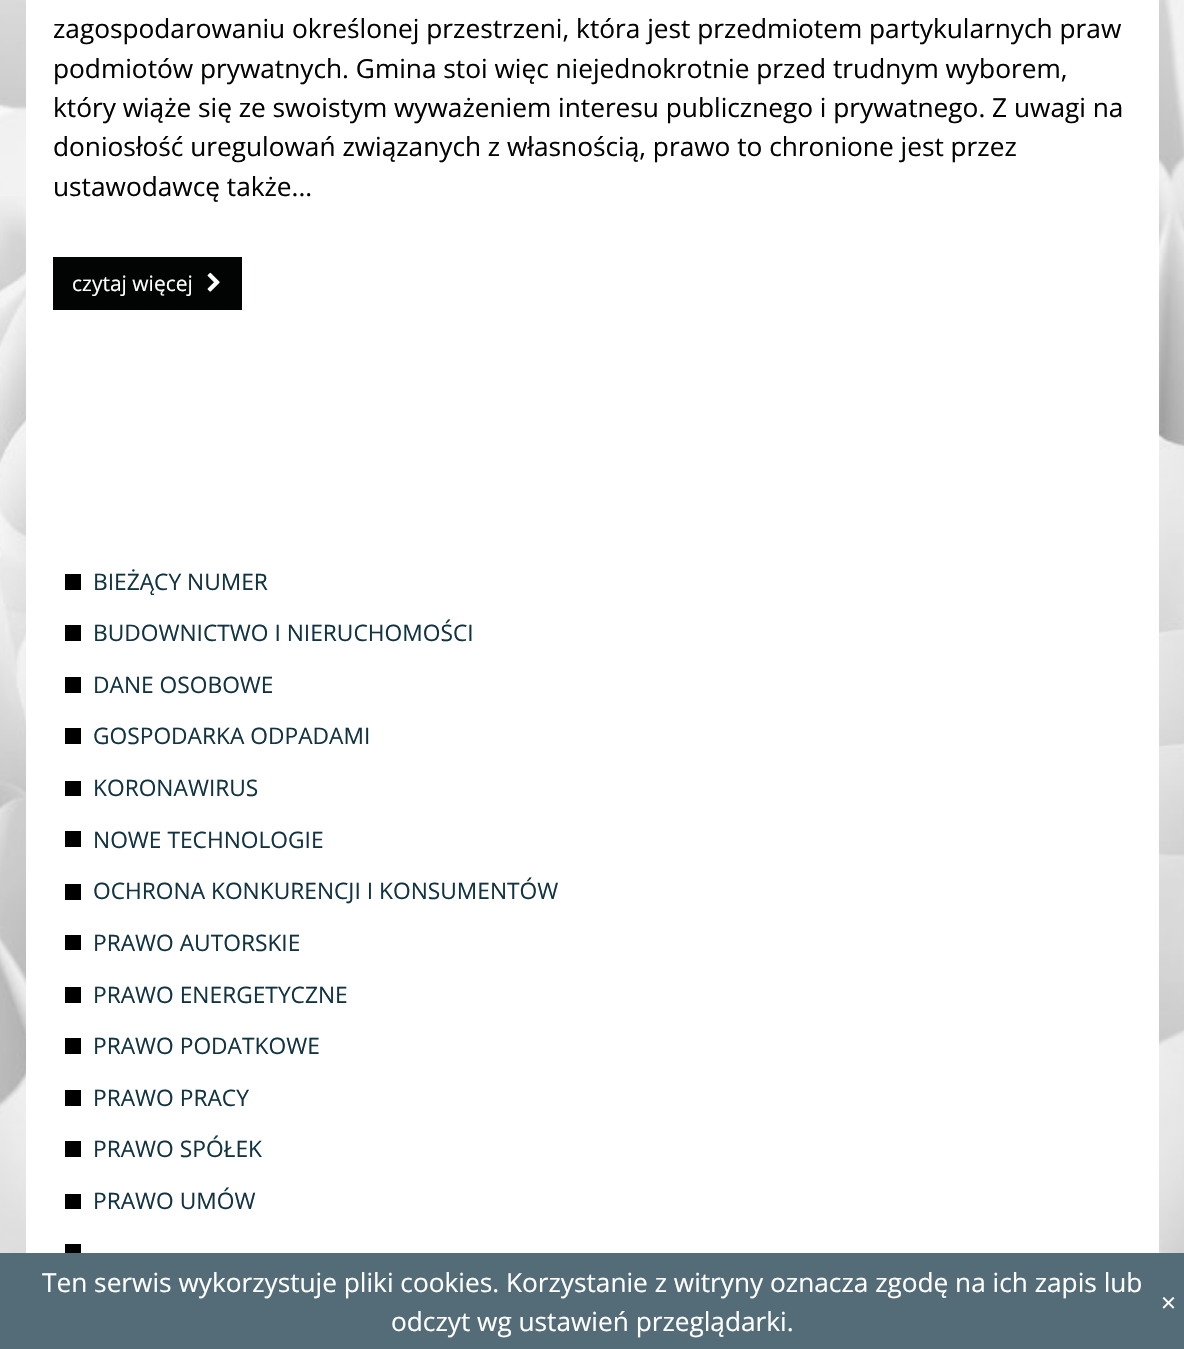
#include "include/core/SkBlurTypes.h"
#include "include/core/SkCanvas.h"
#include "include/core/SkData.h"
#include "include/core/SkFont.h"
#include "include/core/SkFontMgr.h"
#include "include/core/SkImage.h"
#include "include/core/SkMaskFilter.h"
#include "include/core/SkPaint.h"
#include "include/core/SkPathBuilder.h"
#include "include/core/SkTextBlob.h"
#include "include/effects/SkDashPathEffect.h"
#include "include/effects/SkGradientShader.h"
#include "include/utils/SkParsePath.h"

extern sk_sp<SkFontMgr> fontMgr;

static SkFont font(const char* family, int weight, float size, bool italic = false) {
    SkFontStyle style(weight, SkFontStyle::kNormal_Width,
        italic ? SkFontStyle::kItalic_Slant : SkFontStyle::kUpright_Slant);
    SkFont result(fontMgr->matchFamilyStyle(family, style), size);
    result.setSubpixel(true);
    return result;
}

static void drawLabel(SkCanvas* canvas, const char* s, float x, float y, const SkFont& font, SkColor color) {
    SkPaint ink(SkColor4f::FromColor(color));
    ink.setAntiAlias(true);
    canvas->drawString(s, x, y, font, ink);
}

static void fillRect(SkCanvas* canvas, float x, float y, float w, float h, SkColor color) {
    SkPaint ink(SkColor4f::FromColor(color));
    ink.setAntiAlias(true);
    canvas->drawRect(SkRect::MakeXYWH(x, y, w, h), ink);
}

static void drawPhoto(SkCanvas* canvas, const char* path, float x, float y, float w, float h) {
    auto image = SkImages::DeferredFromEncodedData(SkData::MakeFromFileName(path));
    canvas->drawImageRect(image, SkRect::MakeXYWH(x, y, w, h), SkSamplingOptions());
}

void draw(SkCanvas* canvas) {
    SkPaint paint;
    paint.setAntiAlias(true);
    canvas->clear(0xFFFFFFFF);
    drawPhoto(canvas, "assets/img1.png", 0, 0, 1184, 1253);
    fillRect(canvas, 26, 0, 1133, 1253, 0xFFFFFFFF);
    SkFont font1 = font("Open Sans", 400, 26.25f);
    drawLabel(canvas, "zagospodarowaniu określonej przestrzeni, która jest przedmiotem partykularnych praw", 53, 38, font1, 0xFF020303);
    drawLabel(canvas, "podmiotów prywatnych. Gmina stoi więc niejednokrotnie przed trudnym wyborem,", 53, 78, font1, 0xFF020303);
    drawLabel(canvas, "który wiąże się ze swoistym wyważeniem interesu publicznego i prywatnego. Z uwagi na", 53, 117, font1, 0xFF020303);
    drawLabel(canvas, "doniosłość uregulowań związanych z własnością, prawo to chronione jest przez", 53, 156, font1, 0xFF020303);
    drawLabel(canvas, "ustawodawcę także...", 53, 196, font1, 0xFF020303);
    fillRect(canvas, 53, 257, 189, 53, 0xFF020303);
    SkFont font2 = font("Open Sans", 400, 21);
    drawLabel(canvas, "czytaj więcej", 72, 291, font2, 0xFFFFFFFF);
    drawPhoto(canvas, "assets/img2.png", 207, 272, 13, 20);
    fillRect(canvas, 65, 574, 16, 16, 0xFF000000);
    SkFont font3 = font("Open Sans", 400, 22.75f);
    drawLabel(canvas, "BIEŻĄCY NUMER", 93, 590, font3, 0xFF113342);
    fillRect(canvas, 65, 625, 16, 16, 0xFF000000);
    drawLabel(canvas, "BUDOWNICTWO I NIERUCHOMOŚCI", 93, 641, font3, 0xFF113342);
    fillRect(canvas, 65, 677, 16, 16, 0xFF000000);
    drawLabel(canvas, "DANE OSOBOWE", 93, 693, font3, 0xFF113342);
    fillRect(canvas, 65, 728, 16, 16, 0xFF000000);
    drawLabel(canvas, "GOSPODARKA ODPADAMI", 93, 744, font3, 0xFF113342);
    fillRect(canvas, 65, 781, 16, 15, 0xFF000000);
    drawLabel(canvas, "KORONAWIRUS", 93, 796, font3, 0xFF113342);
    fillRect(canvas, 65, 831, 16, 16, 0xFF000000);
    drawLabel(canvas, "NOWE TECHNOLOGIE", 93, 848, font3, 0xFF113342);
    fillRect(canvas, 65, 884, 16, 16, 0xFF000000);
    drawLabel(canvas, "OCHRONA KONKURENCJI I KONSUMENTÓW", 93, 899, font3, 0xFF113342);
    fillRect(canvas, 65, 935, 16, 15, 0xFF000000);
    drawLabel(canvas, "PRAWO AUTORSKIE", 93, 951, font3, 0xFF113342);
    fillRect(canvas, 65, 987, 16, 16, 0xFF000000);
    drawLabel(canvas, "PRAWO ENERGETYCZNE", 93, 1003, font3, 0xFF113342);
    fillRect(canvas, 65, 1038, 16, 16, 0xFF000000);
    drawLabel(canvas, "PRAWO PODATKOWE", 93, 1054, font3, 0xFF113342);
    fillRect(canvas, 65, 1090, 16, 16, 0xFF000000);
    drawLabel(canvas, "PRAWO PRACY", 93, 1106, font3, 0xFF113342);
    fillRect(canvas, 65, 1141, 16, 16, 0xFF000000);
    drawLabel(canvas, "PRAWO SPÓŁEK", 93, 1157, font3, 0xFF113342);
    fillRect(canvas, 65, 1194, 16, 15, 0xFF000000);
    drawLabel(canvas, "PRAWO UMÓW", 93, 1209, font3, 0xFF113342);
    fillRect(canvas, 65, 1244, 16, 9, 0xFF000000);
    fillRect(canvas, 0, 1253, 1184, 96, 0xFF536C77);
    drawLabel(canvas, "Ten serwis wykorzystuje pliki cookies. Korzystanie z witryny oznacza zgodę na ich zapis lub", 42, 1292, font1, 0xFFFFFFFF);
    drawLabel(canvas, "odczyt wg ustawień przeglądarki.", 391, 1331, font1, 0xFFFFFFFF);
    drawLabel(canvas, "×", 1161, 1312, font1, 0xFFFFFFFF);
}
